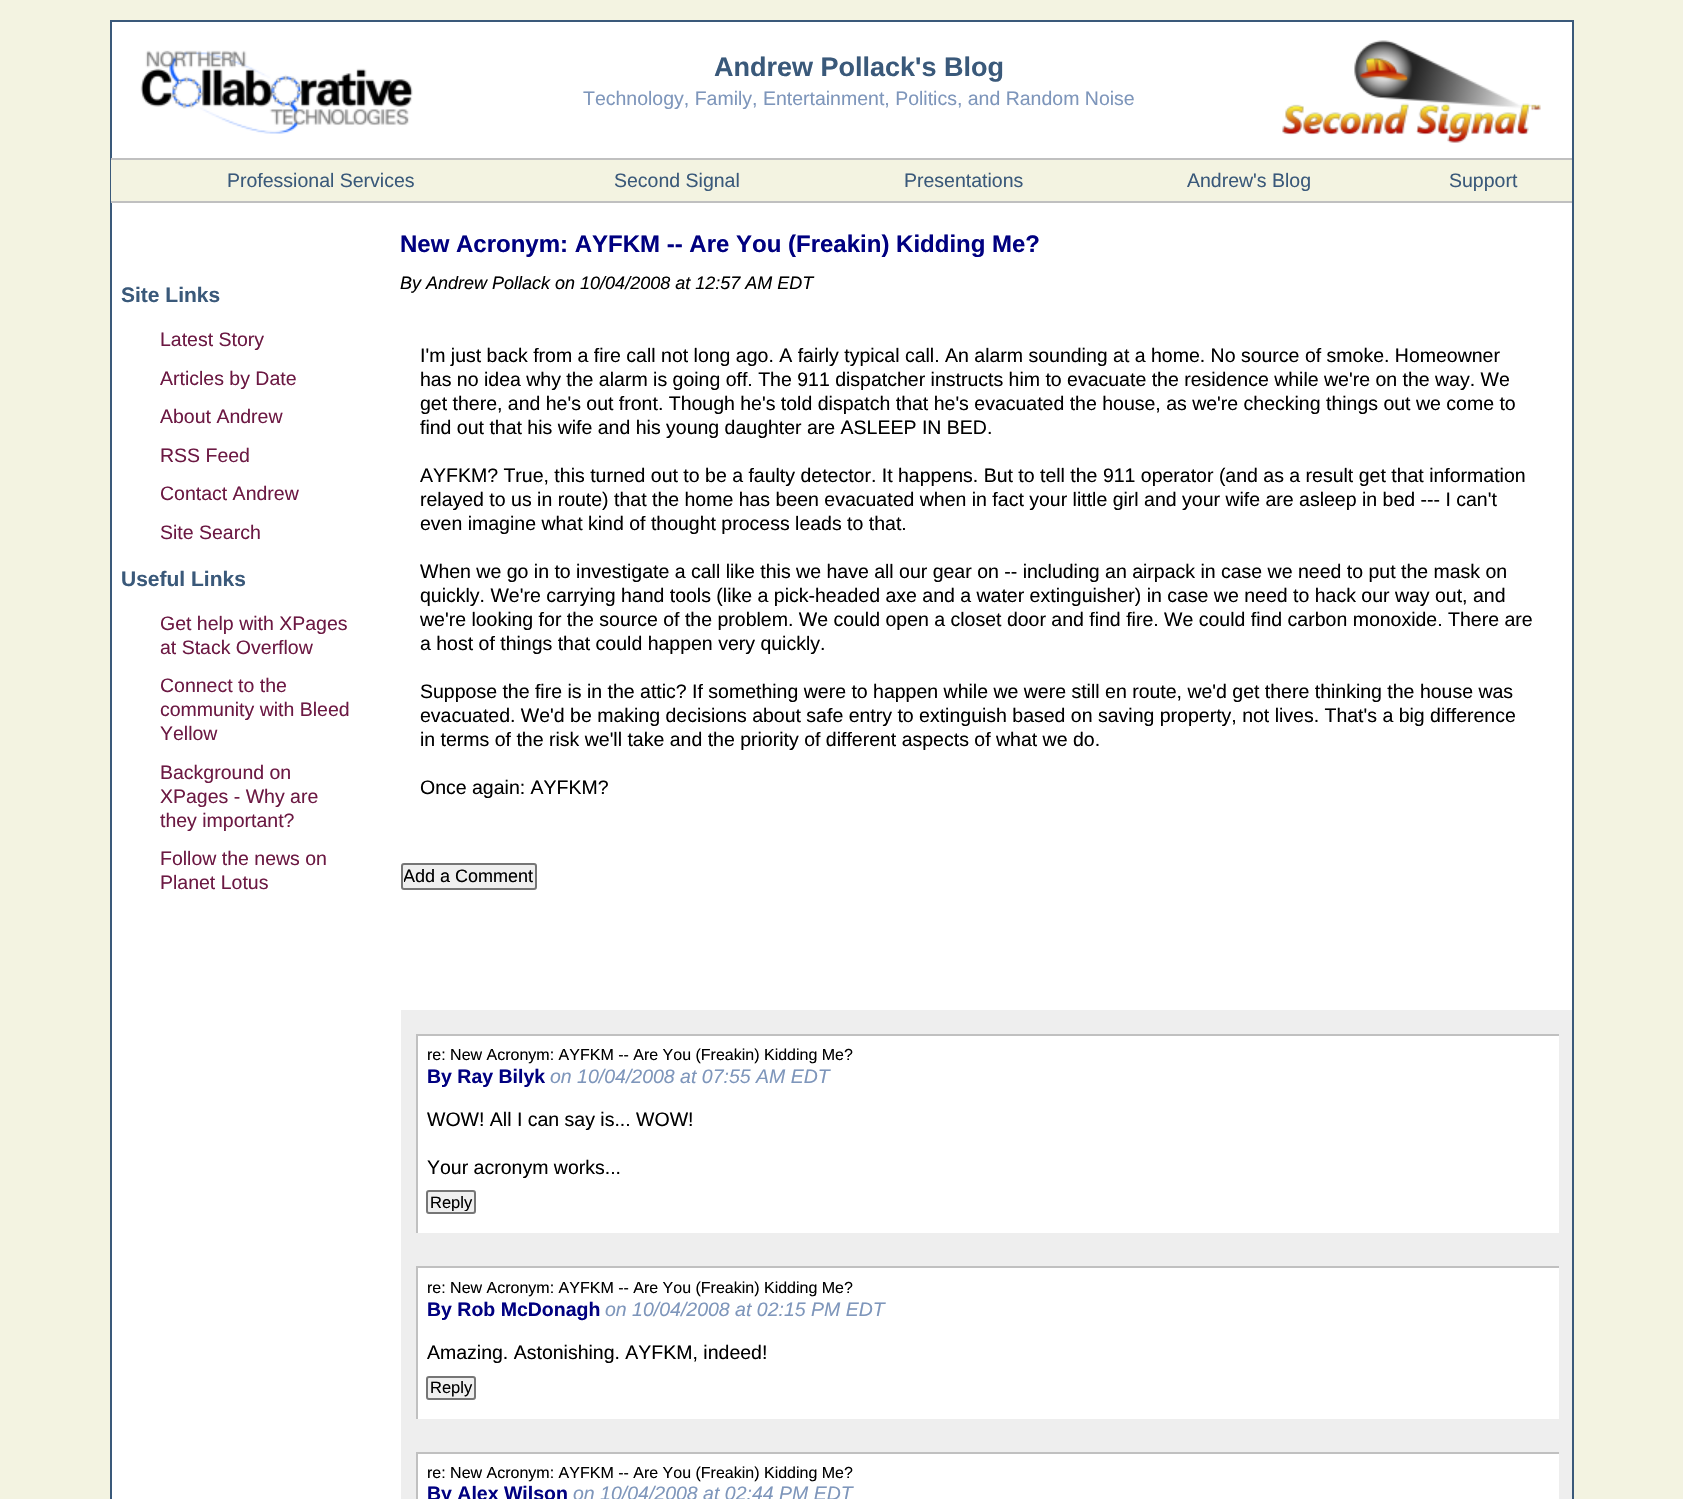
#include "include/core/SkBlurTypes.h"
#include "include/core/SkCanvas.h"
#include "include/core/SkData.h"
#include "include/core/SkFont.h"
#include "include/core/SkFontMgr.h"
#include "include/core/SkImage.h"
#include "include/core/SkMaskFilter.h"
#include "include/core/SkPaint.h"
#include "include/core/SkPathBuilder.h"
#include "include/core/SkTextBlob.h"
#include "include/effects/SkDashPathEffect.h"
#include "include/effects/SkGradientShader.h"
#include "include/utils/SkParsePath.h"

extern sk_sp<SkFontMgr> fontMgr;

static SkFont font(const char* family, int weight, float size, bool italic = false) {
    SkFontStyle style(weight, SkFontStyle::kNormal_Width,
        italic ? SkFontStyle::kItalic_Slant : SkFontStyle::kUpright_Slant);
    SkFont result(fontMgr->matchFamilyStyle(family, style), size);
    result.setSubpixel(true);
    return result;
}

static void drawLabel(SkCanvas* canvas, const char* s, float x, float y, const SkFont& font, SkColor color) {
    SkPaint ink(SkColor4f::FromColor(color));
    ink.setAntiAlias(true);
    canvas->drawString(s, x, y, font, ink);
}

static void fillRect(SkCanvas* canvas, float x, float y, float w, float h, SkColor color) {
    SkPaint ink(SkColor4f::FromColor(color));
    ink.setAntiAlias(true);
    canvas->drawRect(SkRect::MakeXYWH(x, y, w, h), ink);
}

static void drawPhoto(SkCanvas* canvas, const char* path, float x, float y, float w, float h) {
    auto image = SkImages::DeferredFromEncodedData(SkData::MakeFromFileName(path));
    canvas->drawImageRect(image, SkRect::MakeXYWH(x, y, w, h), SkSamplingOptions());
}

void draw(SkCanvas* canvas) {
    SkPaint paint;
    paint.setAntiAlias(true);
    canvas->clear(0xFFF3F3E1);
    paint.setColor(0xFFFFFFFF);
    canvas->drawRect(SkRect::MakeXYWH(111, 21, 1462, 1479), paint);
    paint.setStroke(true);
    paint.setStrokeWidth(2);
    paint.setColor(0xFF3A597A);
    canvas->drawRect(SkRect::MakeXYWH(111, 21, 1462, 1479), paint);
    drawPhoto(canvas, "assets/img1.png", 140, 50, 273, 84);
    SkFont font1 = font("Liberation Sans", 700, 27);
    drawLabel(canvas, "Andrew Pollack's Blog", 714, 76, font1, 0xFF3A597A);
    SkFont font2 = font("Liberation Sans", 400, 19.5f);
    drawLabel(canvas, "Technology, Family, Entertainment, Politics, and Random Noise", 583, 105, font2, 0xFF7E96BB);
    drawPhoto(canvas, "assets/img2.png", 1282, 40, 259, 103);
    fillRect(canvas, 111, 160, 1461, 41, 0xFFF3F3E1);
    fillRect(canvas, 111, 158, 1461, 2, 0xFFC0C0C0);
    fillRect(canvas, 111, 201, 1461, 2, 0xFFC0C0C0);
    drawLabel(canvas, "Professional Services", 227, 187, font2, 0xFF3A597A);
    drawLabel(canvas, "Second Signal", 614, 187, font2, 0xFF3A597A);
    drawLabel(canvas, "Presentations", 904, 187, font2, 0xFF3A597A);
    drawLabel(canvas, "Andrew's Blog", 1187, 187, font2, 0xFF3A597A);
    drawLabel(canvas, "Support", 1449, 187, font2, 0xFF3A597A);
    SkFont font3 = font("Liberation Sans", 700, 21);
    drawLabel(canvas, "Site Links", 121, 302, font3, 0xFF3A597A);
    drawLabel(canvas, "Latest Story", 160, 346, font2, 0xFF6C1943);
    drawLabel(canvas, "Articles by Date", 160, 385, font2, 0xFF6C1943);
    drawLabel(canvas, "About Andrew", 160, 423, font2, 0xFF6C1943);
    drawLabel(canvas, "RSS Feed", 160, 462, font2, 0xFF6C1943);
    drawLabel(canvas, "Contact Andrew", 160, 500, font2, 0xFF6C1943);
    drawLabel(canvas, "Site Search", 160, 539, font2, 0xFF6C1943);
    drawLabel(canvas, "Useful Links", 121, 586, font3, 0xFF3A597A);
    drawLabel(canvas, "Get help with XPages", 160, 630, font2, 0xFF6C1943);
    drawLabel(canvas, "at Stack Overflow", 160, 654, font2, 0xFF6C1943);
    drawLabel(canvas, "Connect to the", 160, 692, font2, 0xFF6C1943);
    drawLabel(canvas, "community with Bleed", 160, 716, font2, 0xFF6C1943);
    drawLabel(canvas, "Yellow", 160, 740, font2, 0xFF6C1943);
    drawLabel(canvas, "Background on", 160, 779, font2, 0xFF6C1943);
    drawLabel(canvas, "XPages - Why are", 160, 803, font2, 0xFF6C1943);
    drawLabel(canvas, "they important?", 160, 827, font2, 0xFF6C1943);
    drawLabel(canvas, "Follow the news on", 160, 865, font2, 0xFF6C1943);
    drawLabel(canvas, "Planet Lotus", 160, 889, font2, 0xFF6C1943);
    SkFont font4 = font("Liberation Sans", 700, 24);
    drawLabel(canvas, "New Acronym: AYFKM -- Are You (Freakin) Kidding Me?", 400, 252, font4, 0xFF000080);
    SkFont font5 = font("Liberation Sans", 400, 18, true);
    drawLabel(canvas, "By Andrew Pollack on 10/04/2008 at 12:57 AM EDT", 400, 289, font5, 0xFF000000);
    drawLabel(canvas, "I'm just back from a fire call not long ago. A fairly typical call. An alarm sounding at a home. No source of smoke. Homeowner", 420, 362, font2, 0xFF000000);
    drawLabel(canvas, "has no idea why the alarm is going off. The 911 dispatcher instructs him to evacuate the residence while we're on the way. We", 420, 386, font2, 0xFF000000);
    drawLabel(canvas, "get there, and he's out front. Though he's told dispatch that he's evacuated the house, as we're checking things out we come to", 420, 410, font2, 0xFF000000);
    drawLabel(canvas, "find out that his wife and his young daughter are ASLEEP IN BED.", 420, 434, font2, 0xFF000000);
    drawLabel(canvas, "AYFKM? True, this turned out to be a faulty detector. It happens. But to tell the 911 operator (and as a result get that information", 420, 482, font2, 0xFF000000);
    drawLabel(canvas, "relayed to us in route) that the home has been evacuated when in fact your little girl and your wife are asleep in bed --- I can't", 420, 506, font2, 0xFF000000);
    drawLabel(canvas, "even imagine what kind of thought process leads to that.", 420, 530, font2, 0xFF000000);
    drawLabel(canvas, "When we go in to investigate a call like this we have all our gear on -- including an airpack in case we need to put the mask on", 420, 578, font2, 0xFF000000);
    drawLabel(canvas, "quickly. We're carrying hand tools (like a pick-headed axe and a water extinguisher) in case we need to hack our way out, and", 420, 602, font2, 0xFF000000);
    drawLabel(canvas, "we're looking for the source of the problem. We could open a closet door and find fire. We could find carbon monoxide. There are", 420, 626, font2, 0xFF000000);
    drawLabel(canvas, "a host of things that could happen very quickly.", 420, 650, font2, 0xFF000000);
    drawLabel(canvas, "Suppose the fire is in the attic? If something were to happen while we were still en route, we'd get there thinking the house was", 420, 698, font2, 0xFF000000);
    drawLabel(canvas, "evacuated. We'd be making decisions about safe entry to extinguish based on saving property, not lives. That's a big difference", 420, 722, font2, 0xFF000000);
    drawLabel(canvas, "in terms of the risk we'll take and the priority of different aspects of what we do.", 420, 746, font2, 0xFF000000);
    drawLabel(canvas, "Once again: AYFKM?", 420, 794, font2, 0xFF000000);
    paint.setStroke(false);
    paint.setColor(0xFFEFEFEF);
    canvas->drawRoundRect(SkRect::MakeXYWH(402, 864, 134, 25), 2, 2, paint);
    paint.setStroke(true);
    paint.setColor(0xFF767676);
    canvas->drawRoundRect(SkRect::MakeXYWH(402, 864, 134, 25), 2, 2, paint);
    canvas->save();
    canvas->clipRect(SkRect::MakeXYWH(404, 866, 130, 21));
    SkFont font6 = font("Liberation Sans", 400, 18);
    drawLabel(canvas, "Add a Comment", 403, 882, font6, 0xFF000000);
    canvas->restore();
    fillRect(canvas, 401, 1010, 1171, 489, 0xFFEEEEEE);
    fillRect(canvas, 418, 1036, 1141, 197, 0xFFFFFFFF);
    fillRect(canvas, 416, 1034, 1143, 2, 0xFFC0C0C0);
    fillRect(canvas, 416, 1034, 2, 199, 0xFFC0C0C0);
    SkFont font7 = font("Liberation Sans", 400, 16);
    drawLabel(canvas, "re: New Acronym: AYFKM -- Are You (Freakin) Kidding Me?", 427, 1060, font7, 0xFF000000);
    SkFont font8 = font("Liberation Sans", 700, 19.5f);
    drawLabel(canvas, "By Ray Bilyk", 427, 1083, font8, 0xFF000080);
    SkFont font9 = font("Liberation Sans", 400, 19.5f, true);
    drawLabel(canvas, "on 10/04/2008 at 07:55 AM EDT", 550, 1083, font9, 0xFF7E96BB);
    drawLabel(canvas, "WOW! All I can say is... WOW!", 427, 1126, font2, 0xFF000000);
    drawLabel(canvas, "Your acronym works...", 427, 1174, font2, 0xFF000000);
    paint.setStroke(false);
    paint.setColor(0xFFEFEFEF);
    canvas->drawRoundRect(SkRect::MakeXYWH(427, 1191, 48, 22), 2, 2, paint);
    paint.setStroke(true);
    paint.setColor(0xFF767676);
    canvas->drawRoundRect(SkRect::MakeXYWH(427, 1191, 48, 22), 2, 2, paint);
    canvas->save();
    canvas->clipRect(SkRect::MakeXYWH(429, 1193, 44, 18));
    SkFont font10 = font("Liberation Sans", 400, 16.5f);
    drawLabel(canvas, "Reply", 430, 1208, font10, 0xFF000000);
    canvas->restore();
    fillRect(canvas, 418, 1268, 1141, 151, 0xFFFFFFFF);
    fillRect(canvas, 416, 1266, 1143, 2, 0xFFC0C0C0);
    fillRect(canvas, 416, 1266, 2, 153, 0xFFC0C0C0);
    drawLabel(canvas, "re: New Acronym: AYFKM -- Are You (Freakin) Kidding Me?", 427, 1293, font7, 0xFF000000);
    drawLabel(canvas, "By Rob McDonagh", 427, 1316, font8, 0xFF000080);
    drawLabel(canvas, "on 10/04/2008 at 02:15 PM EDT", 605, 1316, font9, 0xFF7E96BB);
    drawLabel(canvas, "Amazing. Astonishing. AYFKM, indeed!", 427, 1359, font2, 0xFF000000);
    paint.setStroke(false);
    paint.setColor(0xFFEFEFEF);
    canvas->drawRoundRect(SkRect::MakeXYWH(427, 1377, 48, 22), 2, 2, paint);
    paint.setStroke(true);
    paint.setColor(0xFF767676);
    canvas->drawRoundRect(SkRect::MakeXYWH(427, 1377, 48, 22), 2, 2, paint);
    drawLabel(canvas, "Reply", 430, 1393, font10, 0xFF000000);
    fillRect(canvas, 418, 1454, 1141, 45, 0xFFFFFFFF);
    fillRect(canvas, 416, 1452, 1143, 2, 0xFFC0C0C0);
    fillRect(canvas, 416, 1452, 2, 47, 0xFFC0C0C0);
    drawLabel(canvas, "re: New Acronym: AYFKM -- Are You (Freakin) Kidding Me?", 427, 1478, font7, 0xFF000000);
    drawLabel(canvas, "By Alex Wilson", 427, 1500, font8, 0xFF000080);
    drawLabel(canvas, "on 10/04/2008 at 02:44 PM EDT", 573, 1500, font9, 0xFF7E96BB);
}
